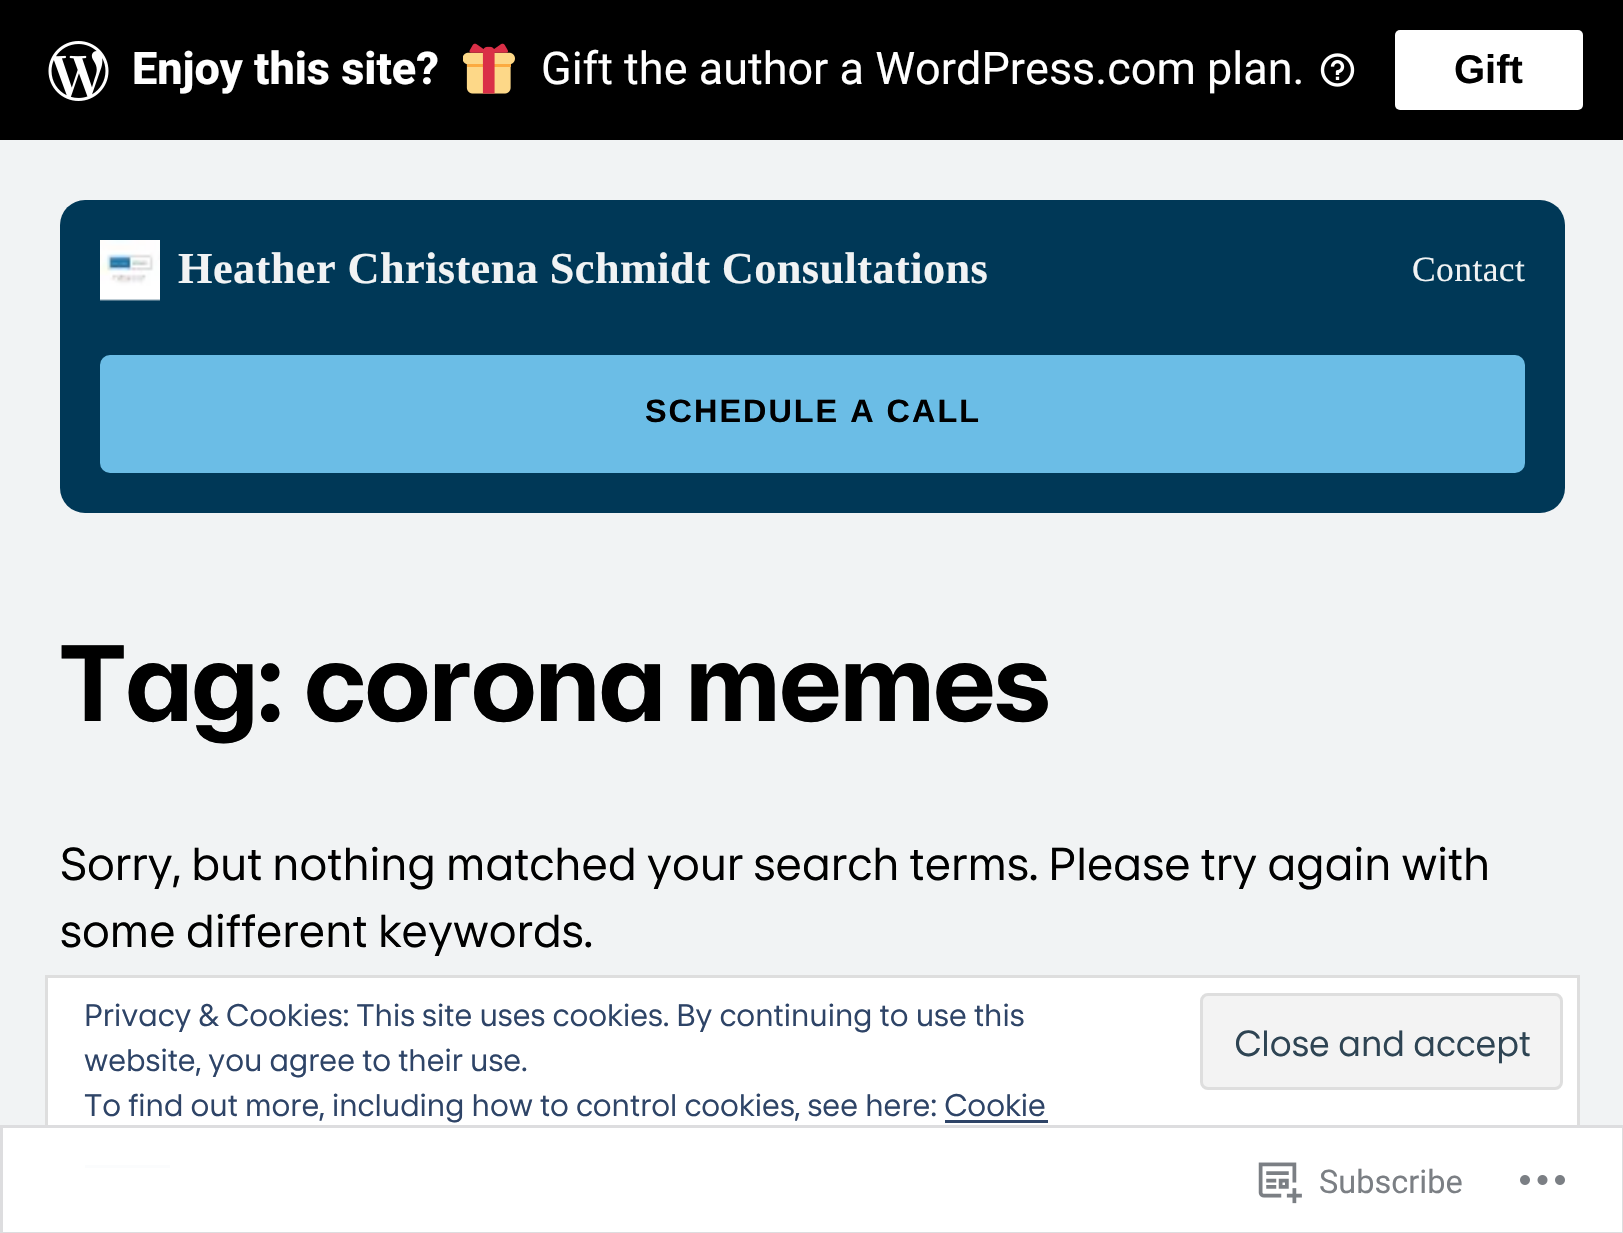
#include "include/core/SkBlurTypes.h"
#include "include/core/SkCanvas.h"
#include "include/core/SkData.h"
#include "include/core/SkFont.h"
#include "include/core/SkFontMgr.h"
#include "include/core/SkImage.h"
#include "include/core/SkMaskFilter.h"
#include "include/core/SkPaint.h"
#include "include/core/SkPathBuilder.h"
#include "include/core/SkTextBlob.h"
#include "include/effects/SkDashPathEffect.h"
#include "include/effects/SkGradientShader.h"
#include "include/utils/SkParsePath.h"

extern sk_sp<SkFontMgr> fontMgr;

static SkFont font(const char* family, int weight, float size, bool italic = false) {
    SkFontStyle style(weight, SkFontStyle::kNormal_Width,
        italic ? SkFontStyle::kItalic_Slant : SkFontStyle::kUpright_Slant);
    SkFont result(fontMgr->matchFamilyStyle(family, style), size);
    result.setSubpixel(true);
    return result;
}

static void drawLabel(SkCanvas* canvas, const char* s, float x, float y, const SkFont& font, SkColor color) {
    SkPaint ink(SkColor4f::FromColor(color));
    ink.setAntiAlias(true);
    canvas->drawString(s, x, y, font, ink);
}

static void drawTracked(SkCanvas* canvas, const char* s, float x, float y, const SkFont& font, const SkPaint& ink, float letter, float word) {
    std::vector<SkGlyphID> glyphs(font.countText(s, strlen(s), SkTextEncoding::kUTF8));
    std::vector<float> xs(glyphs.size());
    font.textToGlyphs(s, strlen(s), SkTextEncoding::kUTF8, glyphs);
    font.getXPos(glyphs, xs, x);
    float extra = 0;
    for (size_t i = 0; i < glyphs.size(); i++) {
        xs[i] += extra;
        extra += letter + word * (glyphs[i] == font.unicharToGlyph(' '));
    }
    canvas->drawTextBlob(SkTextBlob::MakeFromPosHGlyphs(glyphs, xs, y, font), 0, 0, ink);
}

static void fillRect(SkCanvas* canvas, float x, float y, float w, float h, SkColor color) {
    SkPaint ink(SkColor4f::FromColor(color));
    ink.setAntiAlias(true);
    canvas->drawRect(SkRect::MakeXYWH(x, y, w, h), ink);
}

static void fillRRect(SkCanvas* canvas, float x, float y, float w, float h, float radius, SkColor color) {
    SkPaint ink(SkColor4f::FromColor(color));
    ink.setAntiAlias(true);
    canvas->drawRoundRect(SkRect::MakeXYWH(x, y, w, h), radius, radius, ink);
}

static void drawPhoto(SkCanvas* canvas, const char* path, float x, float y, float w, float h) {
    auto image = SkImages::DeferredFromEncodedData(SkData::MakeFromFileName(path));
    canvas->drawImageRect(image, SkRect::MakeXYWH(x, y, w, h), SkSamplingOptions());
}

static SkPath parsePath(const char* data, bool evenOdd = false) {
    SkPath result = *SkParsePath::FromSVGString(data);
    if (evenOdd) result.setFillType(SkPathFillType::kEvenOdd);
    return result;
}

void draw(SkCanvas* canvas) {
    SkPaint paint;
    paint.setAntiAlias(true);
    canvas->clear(0xFFF1F3F4);
    fillRect(canvas, 0, 0, 1623, 140, 0xFF000000);
    drawPhoto(canvas, "assets/img1.png", 48, 41, 61, 60);
    SkFont font1 = font("Roboto", 800, 45);
    drawLabel(canvas, "Enjoy this site?", 132, 84, font1, 0xFFFFFFFF);
    drawPhoto(canvas, "assets/img2.png", 463, 43, 52, 51);
    SkFont font2 = font("Roboto", 400, 45);
    drawLabel(canvas, "Gift the author a WordPress.com plan.", 541, 84, font2, 0xFFFFFFFF);
    drawPhoto(canvas, "assets/img3.png", 1320, 53, 35, 34);
    fillRRect(canvas, 1395, 30, 188, 80, 5, 0xFFFFFFFF);
    SkFont font3 = font("Liberation Sans", 700, 40);
    drawLabel(canvas, "Gift", 1454, 83, font3, 0xFF000000);
    fillRRect(canvas, 60, 200, 1505, 313, 25, 0xFF003857);
    drawPhoto(canvas, "assets/img4.png", 100, 240, 60, 61);
    SkFont font4 = font("Liberation Serif", 700, 44.35f);
    paint.setColor(0xFFF1F3F4);
    drawTracked(canvas, "Heather Christena Schmidt Consultations", 178, 283, font4, paint, 0.4f, 0);
    SkFont font5 = font("Liberation Serif", 400, 35.5f);
    drawTracked(canvas, "Contact", 1412, 281, font5, paint, 0.4f, 0);
    paint.setColor(0xFF6BBDE6);
    canvas->drawRoundRect(SkRect::MakeXYWH(101.5f, 356.5f, 1422, 115), 8.5f, 8.5f, paint);
    paint.setStroke(true);
    paint.setStrokeWidth(3);
    canvas->drawRoundRect(SkRect::MakeXYWH(101.5f, 356.5f, 1422, 115), 8.5f, 8.5f, paint);
    SkFont font6 = font("Liberation Sans", 700, 32.4f);
    paint.setStroke(false);
    paint.setColor(0xFF000000);
    drawTracked(canvas, "SCHEDULE A CALL", 645, 422, font6, paint, 2, 0);
    SkFont font7 = font("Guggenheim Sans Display", 700, 104);
    drawTracked(canvas, "Tag: corona memes", 60, 721, font7, paint, 1, 0);
    SkFont font8 = font("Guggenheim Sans", 400, 44.35f);
    drawTracked(canvas, "Sorry, but nothing matched your search terms. Please try again with", 60, 880, font8, paint, 0, -0.25f);
    drawLabel(canvas, "some different keywords.", 60, 947, font8, 0xFF000000);
    paint.setColor(0xFF000305);
    canvas->drawPath(parsePath("M1188 1232C1157 1232 1154 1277 1184 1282V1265H1177V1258H1184C1184 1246 1185 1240 1198 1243V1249C1191 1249 1191 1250 1191 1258H1198L1197 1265H1192V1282C1221 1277 1218 1232 1188 1232Z"), paint);
    paint.setColor(0xFFFFFFFF);
    canvas->drawRect(SkRect::MakeXYWH(46.5f, 976.5f, 1532, 212), paint);
    paint.setStroke(true);
    paint.setColor(0xFFDEDEDE);
    canvas->drawRect(SkRect::MakeXYWH(46.5f, 976.5f, 1532, 212), paint);
    SkFont font9 = font("Guggenheim Sans", 400, 30);
    drawLabel(canvas, "Privacy & Cookies: This site uses cookies. By continuing to use this", 84, 1026, font9, 0xFF2E4467);
    drawLabel(canvas, "website, you agree to their use.", 84, 1071, font9, 0xFF2E4467);
    paint.setStroke(false);
    paint.setColor(0xFFF3F3F3);
    canvas->drawRoundRect(SkRect::MakeXYWH(1201.5f, 994.5f, 360, 94), 6.5f, 6.5f, paint);
    paint.setStroke(true);
    paint.setColor(0xFFDEDEDE);
    canvas->drawRoundRect(SkRect::MakeXYWH(1201.5f, 994.5f, 360, 94), 6.5f, 6.5f, paint);
    SkFont font10 = font("Guggenheim Sans", 400, 35);
    drawLabel(canvas, "Close and accept", 1234, 1056, font10, 0xFF2E4453);
    drawLabel(canvas, "To find out more, including how to control cookies, see here: Cookie", 84, 1116, font9, 0xFF2E4467);
    fillRect(canvas, 945, 1120, 103, 3, 0xFF2E4467);
    fillRect(canvas, 85, 1165, 85, 3, 0xFF2E4467);
    fillRect(canvas, 0, 1125, 1623, 108, 0xFAFFFFFF);
    paint.setColor(0xFADCDCDE);
    canvas->drawRect(SkRect::MakeXYWH(1.5f, 1126.5f, 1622, 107), paint);
    drawPhoto(canvas, "assets/img5.png", 1258, 1162, 44, 42);
    SkFont font11 = font("Roboto", 400, 32.5f);
    drawLabel(canvas, "Subscribe", 1319, 1193, font11, 0xFF7B7F84);
    drawPhoto(canvas, "assets/img6.png", 1520, 1175, 45, 10);
}
